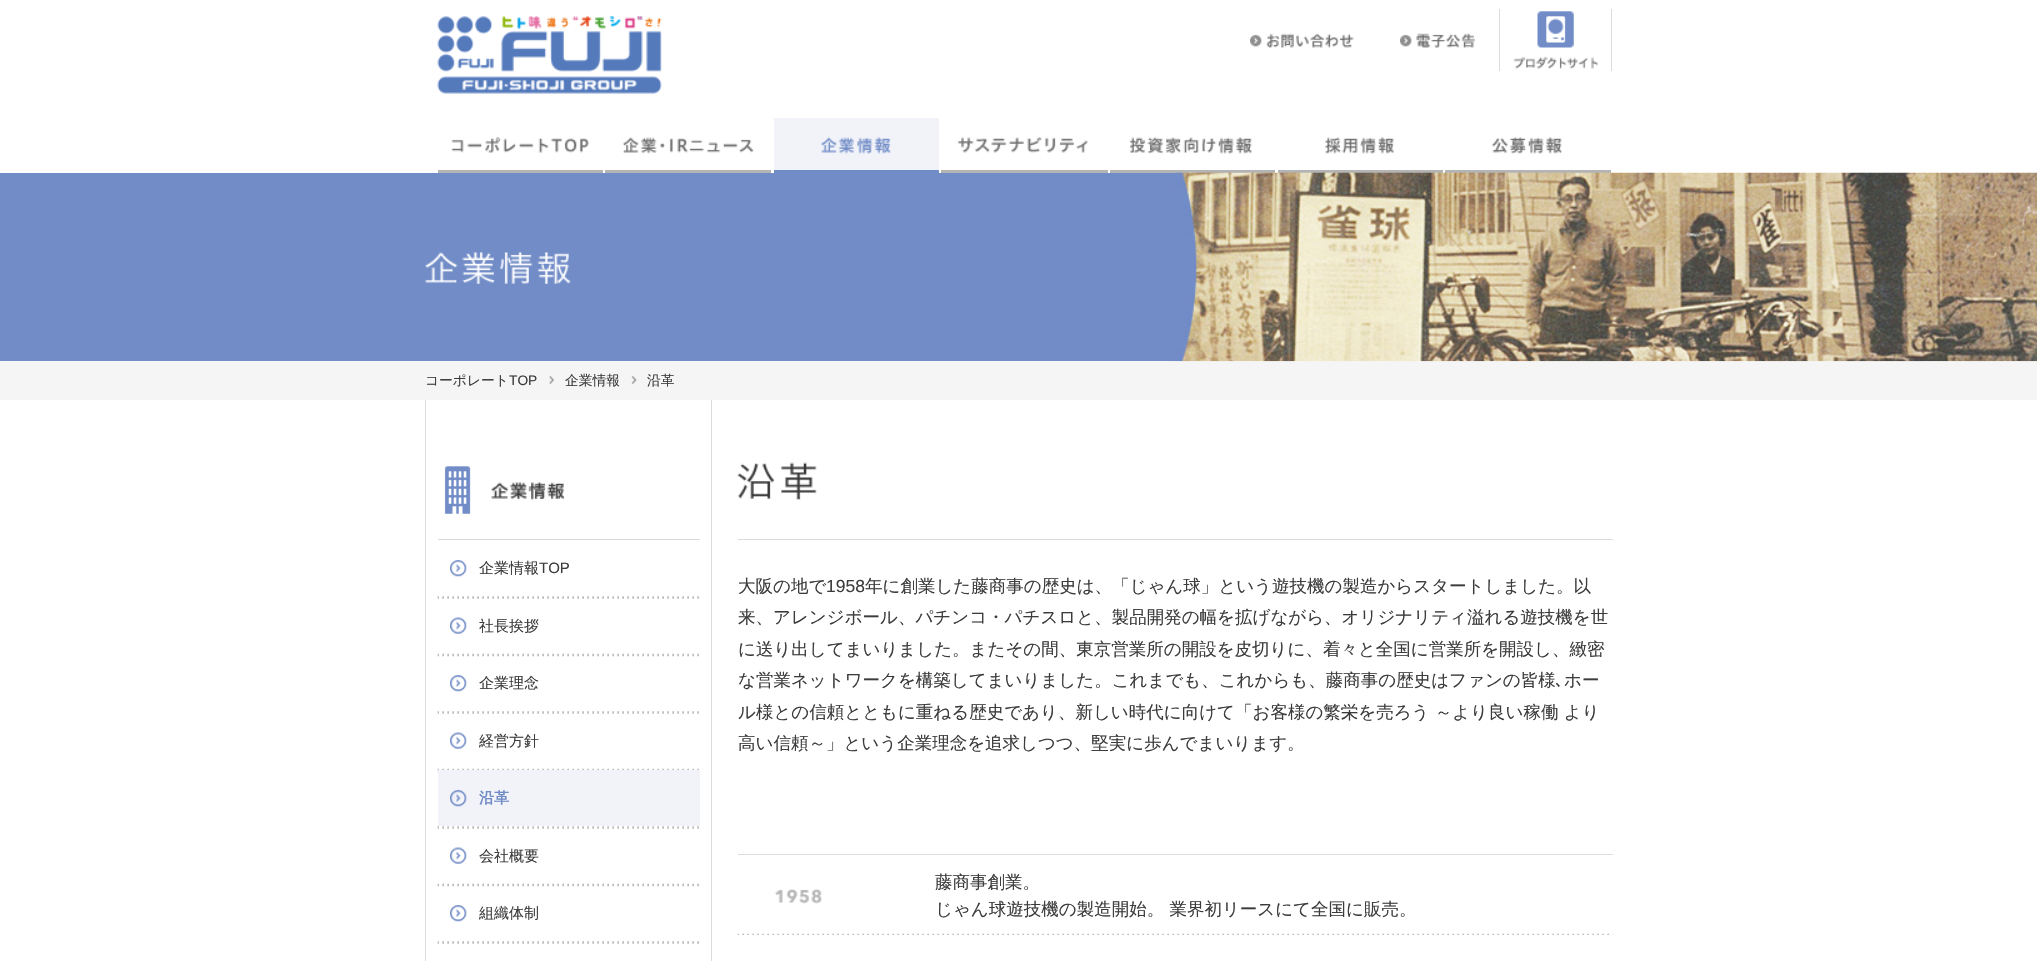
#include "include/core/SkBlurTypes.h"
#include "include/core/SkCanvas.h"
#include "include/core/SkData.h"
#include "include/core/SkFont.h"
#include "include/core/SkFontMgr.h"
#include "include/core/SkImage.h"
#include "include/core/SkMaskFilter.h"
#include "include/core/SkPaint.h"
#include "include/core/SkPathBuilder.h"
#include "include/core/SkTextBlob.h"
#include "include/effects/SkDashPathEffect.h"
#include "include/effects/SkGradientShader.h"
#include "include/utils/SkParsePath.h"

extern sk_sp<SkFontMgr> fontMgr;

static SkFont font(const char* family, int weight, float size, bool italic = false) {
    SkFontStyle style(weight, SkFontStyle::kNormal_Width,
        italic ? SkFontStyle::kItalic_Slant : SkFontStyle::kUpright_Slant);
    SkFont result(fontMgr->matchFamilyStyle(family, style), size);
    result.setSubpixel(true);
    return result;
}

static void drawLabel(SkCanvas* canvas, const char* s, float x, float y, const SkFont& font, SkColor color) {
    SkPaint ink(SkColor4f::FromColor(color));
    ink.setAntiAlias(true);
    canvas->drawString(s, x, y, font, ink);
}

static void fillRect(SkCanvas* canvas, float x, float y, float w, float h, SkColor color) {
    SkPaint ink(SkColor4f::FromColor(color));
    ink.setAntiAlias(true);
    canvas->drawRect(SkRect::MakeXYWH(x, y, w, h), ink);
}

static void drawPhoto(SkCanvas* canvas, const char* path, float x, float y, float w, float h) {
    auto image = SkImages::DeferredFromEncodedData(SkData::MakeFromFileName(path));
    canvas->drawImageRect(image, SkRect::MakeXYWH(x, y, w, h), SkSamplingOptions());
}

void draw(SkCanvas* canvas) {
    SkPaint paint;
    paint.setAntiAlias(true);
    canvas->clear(0xFFFFFFFF);
    drawPhoto(canvas, "assets/img1.png", 437, 16, 225, 78);
    drawPhoto(canvas, "assets/img2.png", 1250, 33, 104, 15);
    drawPhoto(canvas, "assets/img3.png", 1400, 33, 75, 15);
    fillRect(canvas, 1611, 9, 1, 62, 0xFFDCDCDC);
    fillRect(canvas, 1499, 9, 1, 62, 0xFFDCDCDC);
    drawPhoto(canvas, "assets/img4.png", 1513, 11, 86, 58);
    drawPhoto(canvas, "assets/img5.png", 451, 137, 138, 16);
    fillRect(canvas, 438, 170, 165, 3, 0xFFB4B4B4);
    drawPhoto(canvas, "assets/img6.png", 622, 137, 132, 17);
    fillRect(canvas, 605, 170, 166, 3, 0xFFB4B4B4);
    fillRect(canvas, 774, 118, 165, 52, 0xFFF1F3F9);
    drawPhoto(canvas, "assets/img7.png", 821, 137, 70, 17);
    fillRect(canvas, 774, 170, 165, 3, 0xFF718CC7);
    drawPhoto(canvas, "assets/img8.png", 957, 137, 131, 16);
    fillRect(canvas, 941, 170, 167, 3, 0xFFB4B4B4);
    drawPhoto(canvas, "assets/img9.png", 1129, 137, 124, 17);
    fillRect(canvas, 1110, 170, 165, 3, 0xFFB4B4B4);
    drawPhoto(canvas, "assets/img10.png", 1325, 137, 69, 17);
    fillRect(canvas, 1278, 170, 165, 3, 0xFFB4B4B4);
    drawPhoto(canvas, "assets/img11.png", 1492, 137, 71, 17);
    fillRect(canvas, 1445, 170, 166, 3, 0xFFB4B4B4);
    fillRect(canvas, 0, 173, 1175, 188, 0xFF718CC7);
    drawPhoto(canvas, "assets/img12.png", 425, 252, 146, 33);
    fillRect(canvas, 0, 361, 2037, 39, 0xFFF5F5F5);
    drawPhoto(canvas, "assets/img13.png", 1175, 172, 862, 190);
    SkFont font1 = font("WenQuanYi Zen Hei", 500, 13.75f);
    drawLabel(canvas, "コーポレート", 425, 385, font1, 0xFF3C3C3C);
    SkFont font2 = font("Liberation Sans", 400, 13.75f);
    drawLabel(canvas, "TOP", 509, 385, font2, 0xFF3C3C3C);
    drawPhoto(canvas, "assets/img14.png", 549, 376, 5, 8);
    drawLabel(canvas, "企業情報", 565, 385, font1, 0xFF3C3C3C);
    drawPhoto(canvas, "assets/img15.png", 631, 376, 6, 8);
    drawLabel(canvas, "沿革", 647, 385, font1, 0xFF3C3C3C);
    fillRect(canvas, 425, 400, 1, 561, 0xFFDCDCDC);
    drawPhoto(canvas, "assets/img16.png", 444, 466, 121, 48);
    fillRect(canvas, 438, 539, 262, 1, 0xFFDBDBDB);
    drawPhoto(canvas, "assets/img17.png", 450, 560, 17, 17);
    SkFont font3 = font("WenQuanYi Zen Hei", 500, 15);
    drawLabel(canvas, "企業情報", 479, 573, font3, 0xFF3C3C3C);
    SkFont font4 = font("Liberation Sans", 400, 15);
    drawLabel(canvas, "TOP", 539, 573, font4, 0xFF3C3C3C);
    drawPhoto(canvas, "assets/img18.png", 437, 596, 262, 3);
    drawPhoto(canvas, "assets/img19.png", 450, 617, 17, 17);
    drawLabel(canvas, "社長挨拶", 479, 631, font3, 0xFF3C3C3C);
    drawPhoto(canvas, "assets/img20.png", 437, 653, 262, 4);
    drawPhoto(canvas, "assets/img17.png", 450, 675, 17, 17);
    drawLabel(canvas, "企業理念", 479, 688, font3, 0xFF3C3C3C);
    drawPhoto(canvas, "assets/img18.png", 437, 711, 262, 3);
    drawPhoto(canvas, "assets/img19.png", 450, 732, 17, 17);
    drawLabel(canvas, "経営方針", 479, 746, font3, 0xFF3C3C3C);
    drawPhoto(canvas, "assets/img20.png", 437, 768, 262, 4);
    fillRect(canvas, 438, 770, 262, 56, 0xFFF1F3F9);
    drawPhoto(canvas, "assets/img21.png", 450, 790, 17, 17);
    SkFont font5 = font("WenQuanYi Zen Hei", 700, 15);
    drawLabel(canvas, "沿革", 479, 803, font5, 0xFF718CC7);
    drawPhoto(canvas, "assets/img18.png", 437, 826, 262, 3);
    drawPhoto(canvas, "assets/img19.png", 450, 847, 17, 17);
    drawLabel(canvas, "会社概要", 479, 861, font3, 0xFF3C3C3C);
    drawPhoto(canvas, "assets/img20.png", 437, 883, 262, 4);
    drawPhoto(canvas, "assets/img17.png", 450, 905, 17, 17);
    drawLabel(canvas, "組織体制", 479, 918, font3, 0xFF3C3C3C);
    drawPhoto(canvas, "assets/img18.png", 437, 941, 262, 3);
    fillRect(canvas, 711, 400, 1, 561, 0xFFDCDCDC);
    fillRect(canvas, 738, 539, 875, 1, 0xFFDCDCDC);
    drawPhoto(canvas, "assets/img22.png", 737, 462, 80, 38);
    SkFont font6 = font("WenQuanYi Zen Hei", 500, 17.5f);
    drawLabel(canvas, "大阪の地で", 738, 592, font6, 0xFF3C3C3C);
    SkFont font7 = font("Liberation Sans", 400, 17.5f);
    drawLabel(canvas, "1958", 826, 592, font7, 0xFF3C3C3C);
    drawLabel(canvas, "年に創業した藤商事の歴史は、「じゃん球」という遊技機の製造からスタートしました。以", 865, 592, font6, 0xFF3C3C3C);
    drawLabel(canvas, "来、アレンジボール、パチンコ・パチスロと、製品開発の幅を拡げながら、オリジナリティ溢れる遊技機を世", 738, 623, font6, 0xFF3C3C3C);
    drawLabel(canvas, "に送り出してまいりました。またその間、東京営業所の開設を皮切りに、着々と全国に営業所を開設し、緻密", 738, 655, font6, 0xFF3C3C3C);
    drawLabel(canvas, "な営業ネットワークを構築してまいりました。これまでも、これからも、藤商事の歴史はファンの皆様", 738, 686, font6, 0xFF3C3C3C);
    SkFont font8 = font("IPAPGothic", 400, 17.5f);
    drawLabel(canvas, "､", 1555, 686, font8, 0xFF3C3C3C);
    drawLabel(canvas, "ホー", 1564, 686, font6, 0xFF3C3C3C);
    drawLabel(canvas, "ル様との信頼とともに重ねる歴史であり、新しい時代に向けて「お客様の繁栄を売ろう ～より良い稼働 より", 738, 718, font6, 0xFF3C3C3C);
    drawLabel(canvas, "高い信頼～」という企業理念を追求しつつ、堅実に歩んでまいります。", 738, 749, font6, 0xFF3C3C3C);
    fillRect(canvas, 738, 854, 875, 1, 0xFFDCDCDC);
    drawPhoto(canvas, "assets/img23.png", 737, 933, 876, 2);
    drawPhoto(canvas, "assets/img24.png", 775, 888, 47, 16);
    drawLabel(canvas, "藤商事創業。", 935, 888, font6, 0xFF3C3C3C);
    drawLabel(canvas, "じゃん球遊技機の製造開始。 業界初リースにて全国に販売。", 935, 915, font6, 0xFF3C3C3C);
}
